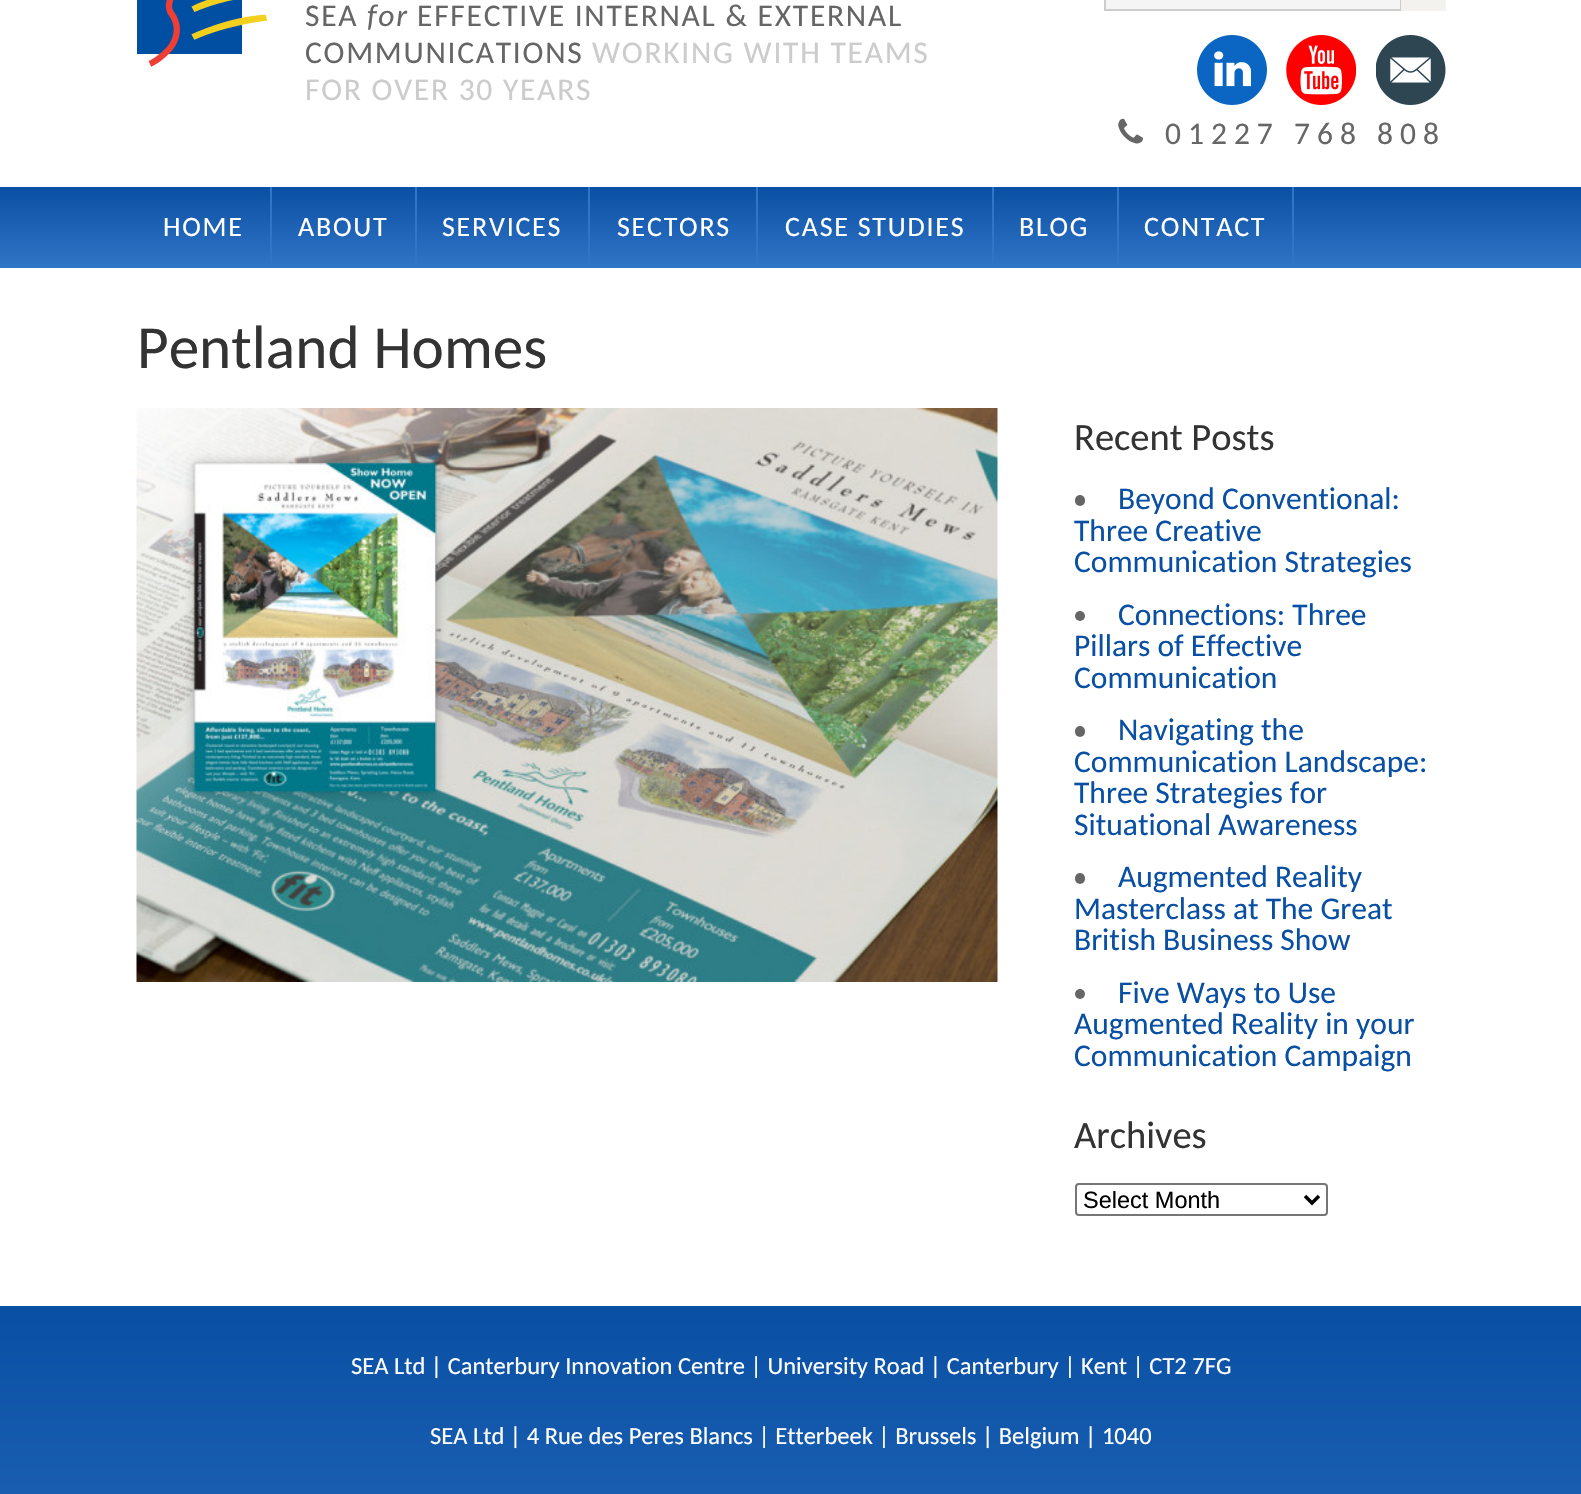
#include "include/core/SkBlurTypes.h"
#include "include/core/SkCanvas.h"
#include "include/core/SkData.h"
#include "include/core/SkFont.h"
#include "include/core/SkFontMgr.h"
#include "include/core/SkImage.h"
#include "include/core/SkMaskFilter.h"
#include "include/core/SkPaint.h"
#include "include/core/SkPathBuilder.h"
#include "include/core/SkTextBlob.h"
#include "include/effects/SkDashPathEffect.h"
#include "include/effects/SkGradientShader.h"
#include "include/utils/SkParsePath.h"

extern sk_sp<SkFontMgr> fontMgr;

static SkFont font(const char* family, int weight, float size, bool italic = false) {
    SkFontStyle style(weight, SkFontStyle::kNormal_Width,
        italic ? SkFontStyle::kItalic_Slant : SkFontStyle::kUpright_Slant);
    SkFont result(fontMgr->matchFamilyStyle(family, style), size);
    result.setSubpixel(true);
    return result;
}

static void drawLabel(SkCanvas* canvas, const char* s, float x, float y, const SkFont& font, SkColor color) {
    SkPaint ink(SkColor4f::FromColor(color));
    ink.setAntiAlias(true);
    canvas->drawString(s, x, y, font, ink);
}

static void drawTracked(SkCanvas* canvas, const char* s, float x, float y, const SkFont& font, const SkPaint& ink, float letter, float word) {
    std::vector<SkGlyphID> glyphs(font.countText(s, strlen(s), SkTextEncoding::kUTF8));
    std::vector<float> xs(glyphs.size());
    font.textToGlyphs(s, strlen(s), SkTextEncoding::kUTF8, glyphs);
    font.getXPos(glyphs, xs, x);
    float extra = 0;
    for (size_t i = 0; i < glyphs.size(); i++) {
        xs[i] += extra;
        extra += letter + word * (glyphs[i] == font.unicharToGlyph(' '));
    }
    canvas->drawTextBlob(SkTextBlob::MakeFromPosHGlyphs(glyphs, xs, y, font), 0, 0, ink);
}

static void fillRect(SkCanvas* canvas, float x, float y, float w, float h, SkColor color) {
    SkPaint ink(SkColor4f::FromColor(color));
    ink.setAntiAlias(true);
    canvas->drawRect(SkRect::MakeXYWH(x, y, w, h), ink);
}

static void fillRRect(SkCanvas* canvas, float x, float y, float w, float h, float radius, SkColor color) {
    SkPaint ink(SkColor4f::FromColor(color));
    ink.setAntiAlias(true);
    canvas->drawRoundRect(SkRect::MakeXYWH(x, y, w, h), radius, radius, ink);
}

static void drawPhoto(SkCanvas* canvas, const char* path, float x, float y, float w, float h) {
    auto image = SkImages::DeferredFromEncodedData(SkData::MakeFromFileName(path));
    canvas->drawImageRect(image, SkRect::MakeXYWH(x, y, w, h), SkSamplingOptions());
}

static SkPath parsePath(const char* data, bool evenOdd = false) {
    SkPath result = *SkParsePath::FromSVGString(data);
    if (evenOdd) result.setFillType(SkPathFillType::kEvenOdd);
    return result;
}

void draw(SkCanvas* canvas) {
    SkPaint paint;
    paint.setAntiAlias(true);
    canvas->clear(0xFFFFFFFF);
    drawPhoto(canvas, "assets/img1.png", 137, 0, 130, 67);
    SkFont font1 = font("Carlito", 400, 31.5f);
    paint.setColor(0xFF666666);
    drawTracked(canvas, "SEA", 305, 26, font1, paint, 1.75f, 0);
    SkFont font2 = font("Carlito", 400, 31.5f, true);
    drawTracked(canvas, "for", 367, 26, font2, paint, 1.75f, 0);
    drawTracked(canvas, "EFFECTIVE INTERNAL & EXTERNAL", 417, 26, font1, paint, 1.75f, 0);
    drawTracked(canvas, "COMMUNICATIONS", 305, 63, font1, paint, 1.75f, 0);
    paint.setColor(0xFFCCCCCC);
    drawTracked(canvas, "WORKING WITH TEAMS", 592, 63, font1, paint, 1.75f, 0);
    drawTracked(canvas, "FOR OVER 30 YEARS", 305, 100, font1, paint, 1.75f, 0);
    paint.setColor(0xFFF5F5F5);
    canvas->drawRect(SkRect::MakeXYWH(1105, -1, 296, 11), paint);
    paint.setStroke(true);
    paint.setStrokeWidth(2);
    paint.setColor(0xFFCCCCCC);
    canvas->drawRect(SkRect::MakeXYWH(1105, -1, 296, 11), paint);
    fillRect(canvas, 1445, 0, 1, 11, 0xFFF5F5F5);
    fillRect(canvas, 1401, 0, 44, 11, 0xFFF3F2EF);
    drawPhoto(canvas, "assets/img2.png", 1197, 35, 70, 70);
    drawPhoto(canvas, "assets/img3.png", 1286, 35, 70, 70);
    drawPhoto(canvas, "assets/img4.png", 1376, 35, 70, 70);
    drawPhoto(canvas, "assets/img5.png", 1118, 118, 25, 26);
    paint.setStroke(false);
    paint.setColor(0xFF666666);
    drawTracked(canvas, "01227 768 808", 1165, 144, font1, paint, 7, 0);
    {
        const SkColor colors[] = {0xFF094FA3, 0xFF3175C6};
        const float stops[] = {0, 1};
        const SkPoint ends[] = {{791, 187}, {791, 268}};
        paint.setShader(SkGradientShader::MakeLinear(ends, colors, stops, 2, SkTileMode::kClamp));
        paint.setAlpha(255);
    }
    canvas->drawRect(SkRect::MakeXYWH(0, 187, 1581, 81), paint);
    fillRect(canvas, 270, 187, 2, 81, 0xFF3175C6);
    SkFont font3 = font("Carlito", 400, 28);
    paint.setShader(nullptr);
    paint.setColor(0xFFFFFFFF);
    drawTracked(canvas, "HOME", 163, 236, font3, paint, 1.75f, 0);
    fillRect(canvas, 415, 187, 2, 81, 0xFF3175C6);
    drawTracked(canvas, "ABOUT", 298, 236, font3, paint, 1.75f, 0);
    fillRect(canvas, 588, 187, 2, 81, 0xFF3175C6);
    drawTracked(canvas, "SERVICES", 442, 236, font3, paint, 1.75f, 0);
    fillRect(canvas, 756, 187, 2, 81, 0xFF3175C6);
    drawTracked(canvas, "SECTORS", 617, 236, font3, paint, 1.75f, 0);
    fillRect(canvas, 992, 187, 2, 81, 0xFF3175C6);
    drawTracked(canvas, "CASE STUDIES", 785, 236, font3, paint, 1.75f, 0);
    fillRect(canvas, 1117, 187, 2, 81, 0xFF3175C6);
    drawTracked(canvas, "BLOG", 1019, 236, font3, paint, 1.75f, 0);
    fillRect(canvas, 1292, 187, 2, 81, 0xFF3175C6);
    drawTracked(canvas, "CONTACT", 1144, 236, font3, paint, 1.75f, 0);
    SkFont font4 = font("Carlito", 400, 61.25f);
    drawLabel(canvas, "Pentland Homes", 137, 368, font4, 0xFF333333);
    drawPhoto(canvas, "assets/img6.png", 136, 408, 862, 574);
    SkFont font5 = font("Carlito", 400, 38.5f);
    drawLabel(canvas, "Recent Posts", 1074, 450, font5, 0xFF333333);
    fillRRect(canvas, 1075, 495, 10, 11, 5, 0xFF666666);
    drawLabel(canvas, "Beyond Conventional:", 1118, 509, font1, 0xFF094FA3);
    drawLabel(canvas, "Three Creative", 1074, 541, font1, 0xFF094FA3);
    drawLabel(canvas, "Communication Strategies", 1074, 572, font1, 0xFF094FA3);
    paint.setColor(0xFF666666);
    canvas->drawCircle(1080, 616, 5, paint);
    drawLabel(canvas, "Connections: Three", 1118, 625, font1, 0xFF094FA3);
    drawLabel(canvas, "Pillars of Effective", 1074, 656, font1, 0xFF094FA3);
    drawLabel(canvas, "Communication", 1074, 688, font1, 0xFF094FA3);
    fillRRect(canvas, 1075, 726, 10, 11, 5, 0xFF666666);
    drawLabel(canvas, "Navigating the", 1118, 740, font1, 0xFF094FA3);
    drawLabel(canvas, "Communication Landscape:", 1074, 772, font1, 0xFF094FA3);
    drawLabel(canvas, "Three Strategies for", 1074, 803, font1, 0xFF094FA3);
    drawLabel(canvas, "Situational Awareness", 1074, 835, font1, 0xFF094FA3);
    fillRRect(canvas, 1075, 873, 10, 11, 5, 0xFF666666);
    drawLabel(canvas, "Augmented Reality", 1118, 887, font1, 0xFF094FA3);
    drawLabel(canvas, "Masterclass at The Great", 1074, 919, font1, 0xFF094FA3);
    drawLabel(canvas, "British Business Show", 1074, 950, font1, 0xFF094FA3);
    canvas->drawCircle(1080, 994, 5, paint);
    drawLabel(canvas, "Five Ways to Use", 1118, 1003, font1, 0xFF094FA3);
    drawLabel(canvas, "Augmented Reality in your", 1074, 1034, font1, 0xFF094FA3);
    drawLabel(canvas, "Communication Campaign", 1074, 1066, font1, 0xFF094FA3);
    drawLabel(canvas, "Archives", 1074, 1148, font5, 0xFF333333);
    paint.setStroke(true);
    paint.setColor(0xFF767676);
    canvas->drawRoundRect(SkRect::MakeXYWH(1076, 1184, 251, 31), 3, 3, paint);
    paint.setStrokeWidth(3.5f);
    paint.setColor(0xFF000000);
    canvas->drawPath(parsePath("M1305 1196L1312 1203L1319 1196"), paint);
    SkFont font6 = font("Liberation Sans", 400, 23.5f);
    drawLabel(canvas, "Select Month", 1083, 1208, font6, 0xFF000000);
    paint.setStroke(false);
    {
        const SkColor colors[] = {0xFF094FA3, 0xFF3175C6};
        const float stops[] = {0, 1};
        const SkPoint ends[] = {{791, 1306}, {791, 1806}};
        paint.setShader(SkGradientShader::MakeLinear(ends, colors, stops, 2, SkTileMode::kClamp));
        paint.setAlpha(255);
    }
    canvas->drawRect(SkRect::MakeXYWH(0, 1306, 1581, 188), paint);
    SkFont font7 = font("Carlito", 400, 24.5f);
    drawLabel(canvas, "SEA Ltd | Canterbury Innovation Centre | University Road | Canterbury | Kent | CT2 7FG", 351, 1374, font7, 0xFFFFFFFF);
    drawLabel(canvas, "SEA Ltd | 4 Rue des Peres Blancs | Etterbeek | Brussels | Belgium | 1040", 430, 1444, font7, 0xFFFFFFFF);
}
